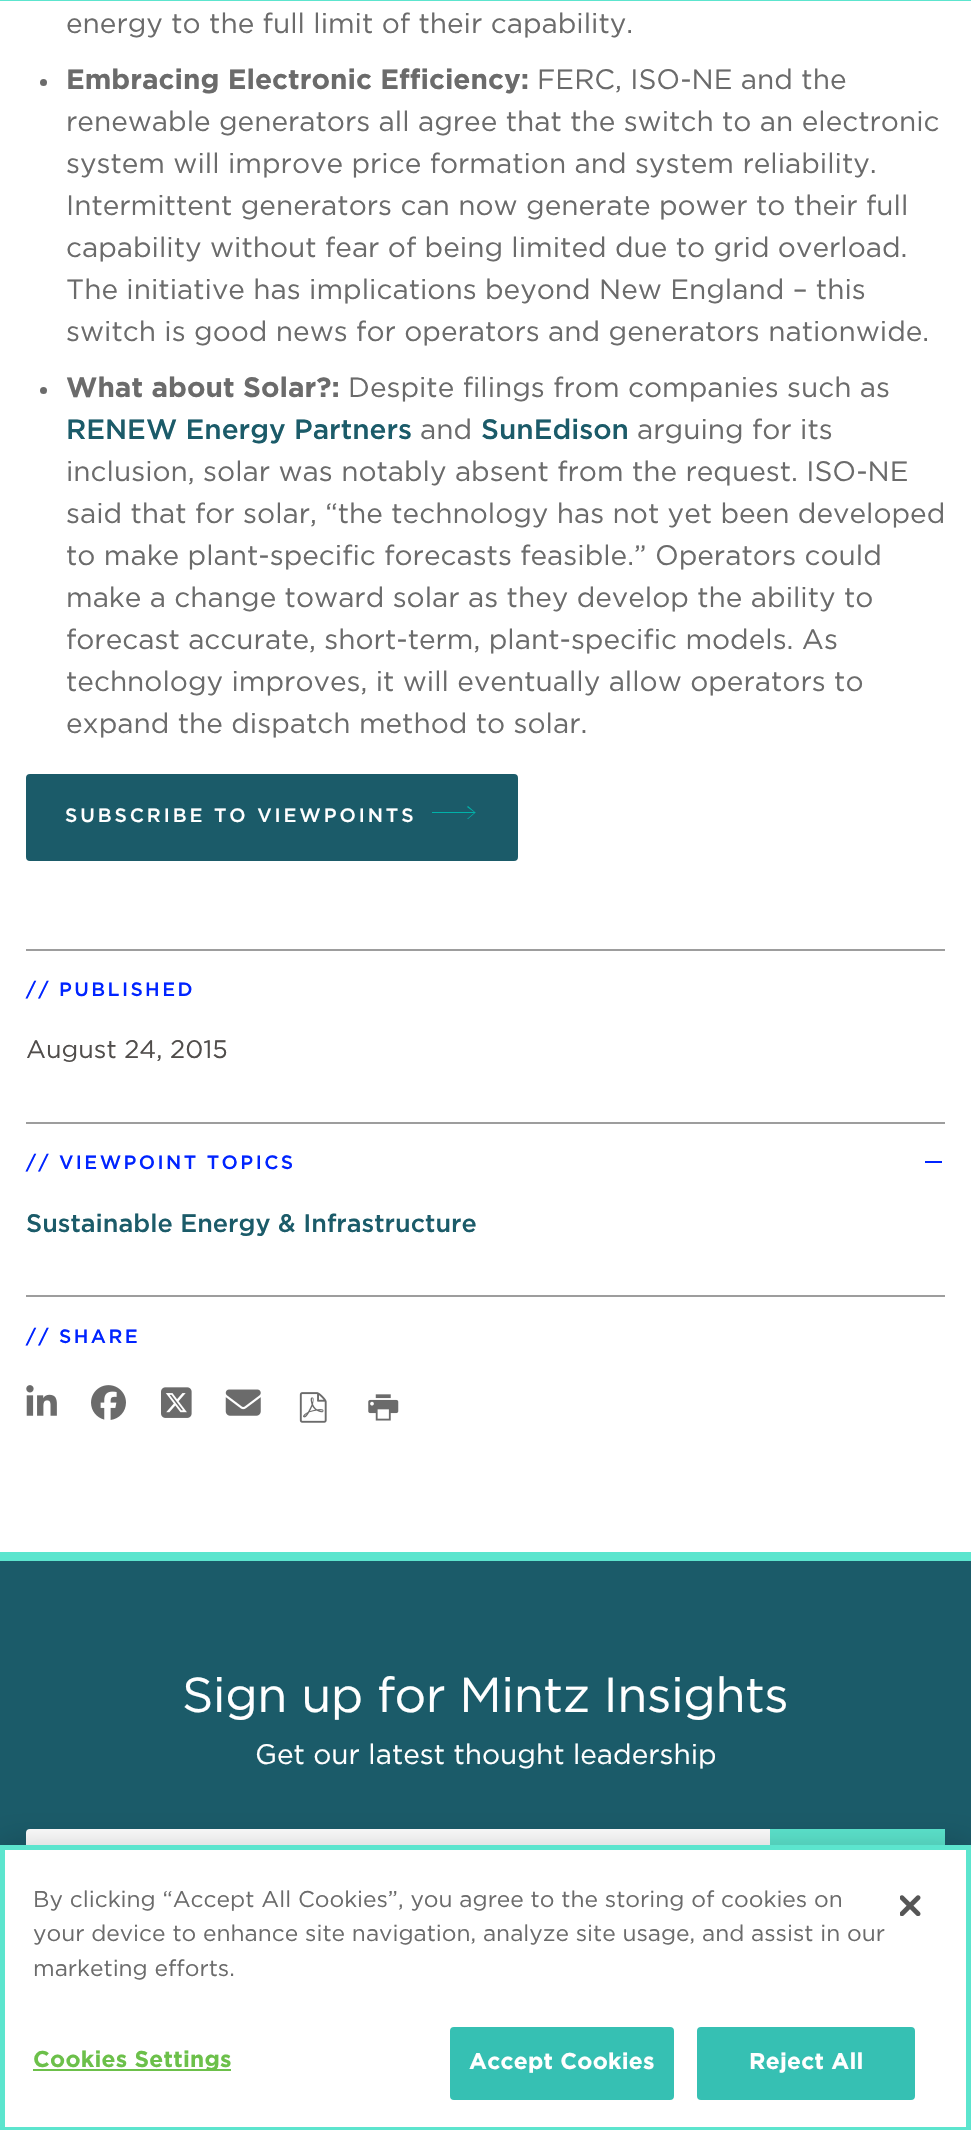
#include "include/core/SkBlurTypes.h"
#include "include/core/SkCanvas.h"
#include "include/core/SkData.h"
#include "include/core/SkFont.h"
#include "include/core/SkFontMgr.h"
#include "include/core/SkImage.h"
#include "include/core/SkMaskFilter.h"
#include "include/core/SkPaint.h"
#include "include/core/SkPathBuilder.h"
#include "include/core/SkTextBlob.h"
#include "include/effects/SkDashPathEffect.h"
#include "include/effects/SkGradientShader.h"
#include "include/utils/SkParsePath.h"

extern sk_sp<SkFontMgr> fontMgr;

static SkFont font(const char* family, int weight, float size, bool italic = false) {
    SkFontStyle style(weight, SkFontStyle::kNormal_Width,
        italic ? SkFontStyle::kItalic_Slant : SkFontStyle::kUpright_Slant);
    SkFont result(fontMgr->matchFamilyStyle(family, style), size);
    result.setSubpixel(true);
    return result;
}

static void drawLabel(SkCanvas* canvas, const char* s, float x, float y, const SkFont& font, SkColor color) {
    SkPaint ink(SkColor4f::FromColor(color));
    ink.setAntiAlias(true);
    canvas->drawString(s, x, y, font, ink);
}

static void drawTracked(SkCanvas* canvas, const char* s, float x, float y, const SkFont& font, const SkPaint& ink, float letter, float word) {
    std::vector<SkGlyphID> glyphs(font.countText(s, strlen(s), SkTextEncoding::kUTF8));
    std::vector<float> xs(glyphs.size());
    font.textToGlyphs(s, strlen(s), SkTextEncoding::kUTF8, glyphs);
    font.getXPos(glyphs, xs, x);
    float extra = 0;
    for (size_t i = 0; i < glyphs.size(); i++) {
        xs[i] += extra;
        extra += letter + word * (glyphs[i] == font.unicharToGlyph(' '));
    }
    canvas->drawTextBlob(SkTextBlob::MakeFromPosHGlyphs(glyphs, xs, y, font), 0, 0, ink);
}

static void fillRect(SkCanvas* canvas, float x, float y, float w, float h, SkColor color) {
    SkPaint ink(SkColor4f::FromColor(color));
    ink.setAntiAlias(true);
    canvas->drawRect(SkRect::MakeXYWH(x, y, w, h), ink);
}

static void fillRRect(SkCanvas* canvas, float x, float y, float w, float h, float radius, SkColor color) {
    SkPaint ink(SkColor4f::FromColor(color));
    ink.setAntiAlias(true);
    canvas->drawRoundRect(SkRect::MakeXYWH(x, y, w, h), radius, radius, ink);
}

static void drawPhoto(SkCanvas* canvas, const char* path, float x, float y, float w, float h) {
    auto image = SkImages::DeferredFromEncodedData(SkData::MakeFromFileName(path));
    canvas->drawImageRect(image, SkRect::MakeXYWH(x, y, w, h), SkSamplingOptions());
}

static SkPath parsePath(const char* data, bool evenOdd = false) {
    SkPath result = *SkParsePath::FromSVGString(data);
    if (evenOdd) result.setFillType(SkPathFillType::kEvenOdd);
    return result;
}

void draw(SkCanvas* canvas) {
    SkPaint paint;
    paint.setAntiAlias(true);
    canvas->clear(0xFFFFFFFF);
    fillRect(canvas, 0, 0, 971, 1, 0xFF5CE5CE);
    SkFont font1 = font("Gotham", 400, 28);
    drawLabel(canvas, "energy to the full limit of their capability.", 66, 33, font1, 0xFF6B6B6B);
    paint.setColor(0xFF6B6B6B);
    canvas->drawCircle(43.5f, 82.5f, 3.5f, paint);
    SkFont font2 = font("Gotham", 700, 28);
    drawLabel(canvas, "Embracing Electronic Efficiency:", 66, 89, font2, 0xFF6B6B6B);
    drawLabel(canvas, "FERC, ISO-NE and the", 537, 89, font1, 0xFF6B6B6B);
    drawLabel(canvas, "renewable generators all agree that the switch to an electronic", 66, 131, font1, 0xFF6B6B6B);
    drawLabel(canvas, "system will improve price formation and system reliability.", 66, 173, font1, 0xFF6B6B6B);
    drawLabel(canvas, "Intermittent generators can now generate power to their full", 66, 215, font1, 0xFF6B6B6B);
    drawLabel(canvas, "capability without fear of being limited due to grid overload.", 66, 257, font1, 0xFF6B6B6B);
    drawLabel(canvas, "The initiative has implications beyond New England – this", 66, 299, font1, 0xFF6B6B6B);
    drawLabel(canvas, "switch is good news for operators and generators nationwide.", 66, 341, font1, 0xFF6B6B6B);
    canvas->drawCircle(43.5f, 390.5f, 3.5f, paint);
    drawLabel(canvas, "What about Solar?:", 66, 397, font2, 0xFF6B6B6B);
    drawLabel(canvas, "Despite filings from companies such as", 348, 397, font1, 0xFF6B6B6B);
    SkFont font3 = font("Gotham", 500, 28);
    drawLabel(canvas, "RENEW Energy Partners", 66, 439, font3, 0xFF1B5B69);
    drawLabel(canvas, "and", 420, 439, font1, 0xFF6B6B6B);
    drawLabel(canvas, "SunEdison", 481, 439, font3, 0xFF1B5B69);
    drawLabel(canvas, "arguing for its", 637, 439, font1, 0xFF6B6B6B);
    drawLabel(canvas, "inclusion, solar was notably absent from the request. ISO-NE", 66, 481, font1, 0xFF6B6B6B);
    drawLabel(canvas, "said that for solar, “the technology has not yet been developed", 66, 523, font1, 0xFF6B6B6B);
    drawLabel(canvas, "to make plant-specific forecasts feasible.” Operators could", 66, 565, font1, 0xFF6B6B6B);
    drawLabel(canvas, "make a change toward solar as they develop the ability to", 66, 607, font1, 0xFF6B6B6B);
    drawLabel(canvas, "forecast accurate, short-term, plant-specific models. As", 66, 649, font1, 0xFF6B6B6B);
    drawLabel(canvas, "technology improves, it will eventually allow operators to", 66, 691, font1, 0xFF6B6B6B);
    drawLabel(canvas, "expand the dispatch method to solar.", 66, 733, font1, 0xFF6B6B6B);
    paint.setColor(0xFF1B5B69);
    canvas->drawRoundRect(SkRect::MakeXYWH(28, 776, 488, 83), 2, 2, paint);
    paint.setStroke(true);
    paint.setStrokeWidth(4);
    canvas->drawRoundRect(SkRect::MakeXYWH(28, 776, 488, 83), 2, 2, paint);
    SkFont font4 = font("Gotham", 500, 19.25f);
    paint.setStroke(false);
    paint.setColor(0xFFFFFFFF);
    drawTracked(canvas, "SUBSCRIBE TO VIEWPOINTS", 65, 822, font4, paint, 2.9f, 0);
    paint.setColor(0xFF00B2A9);
    canvas->drawPath(parsePath("M476 813L468 806L467 807L474 812H432V813H474L467 819H468L475 813Z"), paint);
    fillRect(canvas, 26, 949, 919, 2, 0xFF9D9D9D);
    paint.setColor(0xFF0024FF);
    drawTracked(canvas, "// PUBLISHED", 26, 996, font4, paint, 2.4f, 0);
    SkFont font5 = font("Gotham", 400, 25.25f);
    drawLabel(canvas, "August 24, 2015", 26, 1058, font5, 0xFF504D4B);
    fillRect(canvas, 26, 1122, 919, 2, 0xFF9D9D9D);
    drawTracked(canvas, "// VIEWPOINT TOPICS", 26, 1169, font4, paint, 2.4f, 0);
    fillRect(canvas, 925, 1161, 17, 2, 0xFF0024FF);
    SkFont font6 = font("Gotham", 500, 25.25f);
    drawLabel(canvas, "Sustainable Energy & Infrastructure", 26, 1232, font6, 0xFF1B5B69);
    fillRect(canvas, 26, 1295, 919, 2, 0xFF9D9D9D);
    drawTracked(canvas, "// SHARE", 26, 1343, font4, paint, 2.4f, 0);
    drawPhoto(canvas, "assets/img1.png", 26, 1385, 31, 31);
    drawPhoto(canvas, "assets/img2.png", 91, 1385, 35, 35);
    drawPhoto(canvas, "assets/img3.png", 161, 1387, 31, 31);
    drawPhoto(canvas, "assets/img4.png", 225, 1389, 36, 27);
    drawPhoto(canvas, "assets/img5.png", 299, 1392, 28, 31);
    drawPhoto(canvas, "assets/img6.png", 368, 1394, 31, 27);
    fillRect(canvas, 0, 1561, 971, 284, 0xFF1B5B69);
    fillRect(canvas, 0, 1552, 971, 9, 0xFF5CE5CE);
    SkFont font7 = font("Gotham", 400, 49);
    paint.setColor(0xFFFFFFFF);
    drawTracked(canvas, "Sign up for Mintz Insights", 182, 1712, font7, paint, -0.5f, 0);
    drawLabel(canvas, "Get our latest thought leadership", 255, 1764, font1, 0xFFFFFFFF);
    fillRRect(canvas, 26, 1829, 919, 84, 4, 0xFFFFFFFF);
    fillRect(canvas, 770, 1829, 175, 16, 0xFF5CE5CE);
    paint.setColor(0x33000000);
    paint.setMaskFilter(SkMaskFilter::MakeBlur(kNormal_SkBlurStyle, 16));
    canvas->drawRect(SkRect::MakeXYWH(0, 1845, 971, 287), paint);
    paint.setMaskFilter(nullptr);
    paint.setColor(0xFFFFFFFF);
    canvas->drawRect(SkRect::MakeXYWH(2.5f, 1847.5f, 966, 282), paint);
    paint.setStroke(true);
    paint.setStrokeWidth(5);
    paint.setColor(0xFF5CE5CE);
    canvas->drawRect(SkRect::MakeXYWH(2.5f, 1847.5f, 966, 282), paint);
    SkFont font8 = font("Gotham", 400, 22.75f);
    drawLabel(canvas, "By clicking “Accept All Cookies”, you agree to the storing of cookies on", 33, 1907, font8, 0xFF6B6B6B);
    drawLabel(canvas, "your device to enhance site navigation, analyze site usage, and assist in our", 33, 1941, font8, 0xFF6B6B6B);
    drawLabel(canvas, "marketing efforts.", 33, 1976, font8, 0xFF6B6B6B);
    fillRect(canvas, 33, 2069, 198, 2, 0xFF6CC04A);
    SkFont font9 = font("Gotham", 700, 22.75f);
    paint.setStroke(false);
    paint.setColor(0xFF6CC04A);
    drawTracked(canvas, "Cookies Settings", 33, 2067, font9, paint, 0.25f, 0);
    paint.setColor(0xFF36C0B3);
    canvas->drawRoundRect(SkRect::MakeXYWH(451, 2028, 222, 71), 3, 3, paint);
    paint.setStroke(true);
    paint.setStrokeWidth(2);
    canvas->drawRoundRect(SkRect::MakeXYWH(451, 2028, 222, 71), 3, 3, paint);
    paint.setStroke(false);
    paint.setColor(0xFFFFFFFF);
    drawTracked(canvas, "Accept Cookies", 469, 2069, font9, paint, 0.25f, 0);
    paint.setColor(0xFF36C0B3);
    canvas->drawRoundRect(SkRect::MakeXYWH(698, 2028, 216, 71), 3, 3, paint);
    paint.setStroke(true);
    canvas->drawRoundRect(SkRect::MakeXYWH(698, 2028, 216, 71), 3, 3, paint);
    paint.setStroke(false);
    paint.setColor(0xFFFFFFFF);
    drawTracked(canvas, "Reject All", 749, 2069, font9, paint, 0.25f, 0);
    drawPhoto(canvas, "assets/img7.png", 900, 1895, 21, 21);
}
